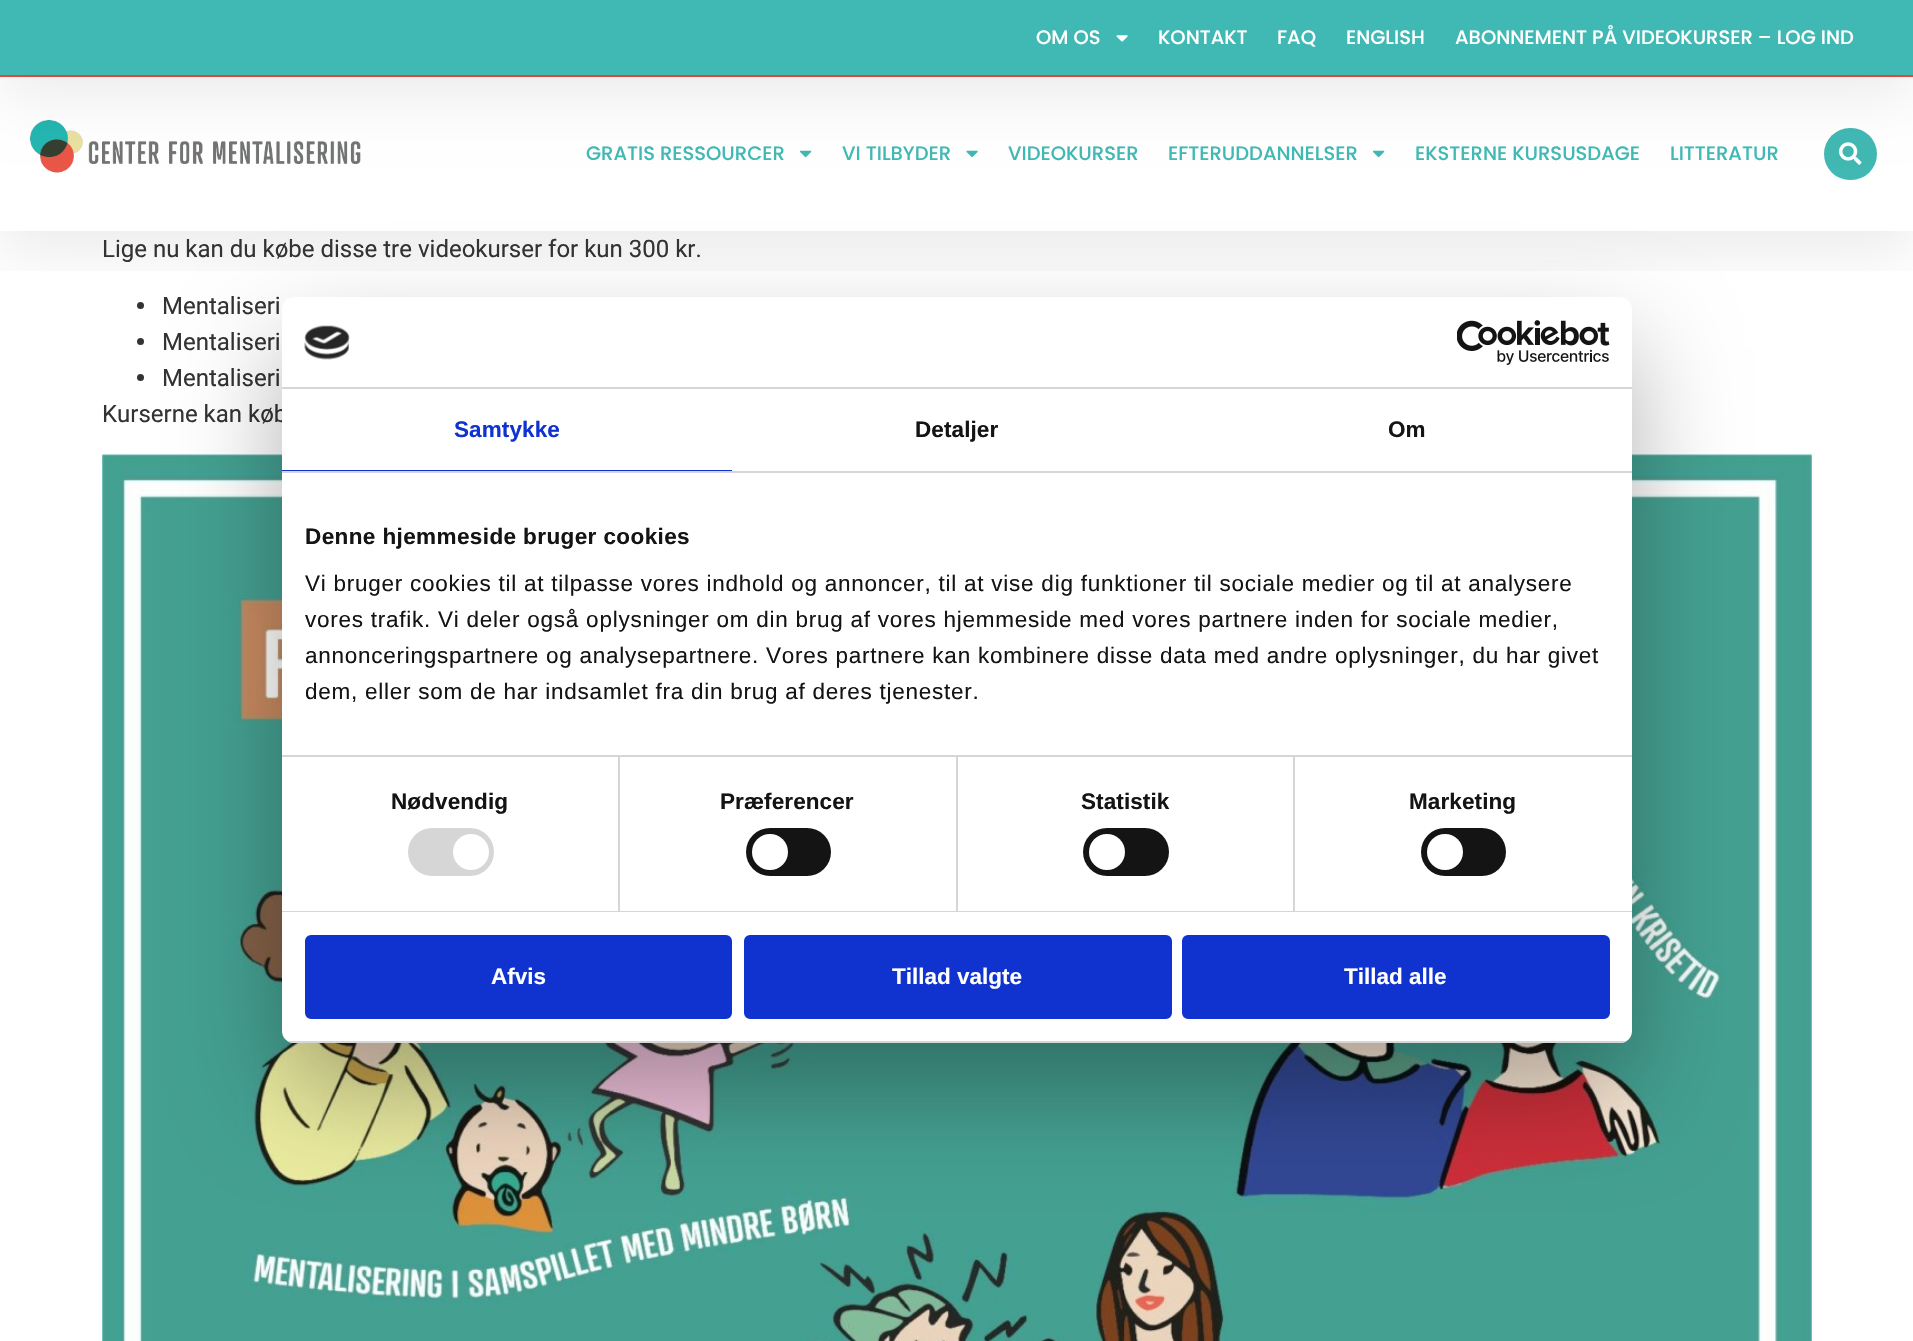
#include "include/core/SkBlurTypes.h"
#include "include/core/SkCanvas.h"
#include "include/core/SkData.h"
#include "include/core/SkFont.h"
#include "include/core/SkFontMgr.h"
#include "include/core/SkImage.h"
#include "include/core/SkMaskFilter.h"
#include "include/core/SkPaint.h"
#include "include/core/SkPathBuilder.h"
#include "include/core/SkTextBlob.h"
#include "include/effects/SkDashPathEffect.h"
#include "include/effects/SkGradientShader.h"
#include "include/utils/SkParsePath.h"

extern sk_sp<SkFontMgr> fontMgr;

static SkFont font(const char* family, int weight, float size, bool italic = false) {
    SkFontStyle style(weight, SkFontStyle::kNormal_Width,
        italic ? SkFontStyle::kItalic_Slant : SkFontStyle::kUpright_Slant);
    SkFont result(fontMgr->matchFamilyStyle(family, style), size);
    result.setSubpixel(true);
    return result;
}

static void drawLabel(SkCanvas* canvas, const char* s, float x, float y, const SkFont& font, SkColor color) {
    SkPaint ink(SkColor4f::FromColor(color));
    ink.setAntiAlias(true);
    canvas->drawString(s, x, y, font, ink);
}

static void drawTracked(SkCanvas* canvas, const char* s, float x, float y, const SkFont& font, const SkPaint& ink, float letter, float word) {
    std::vector<SkGlyphID> glyphs(font.countText(s, strlen(s), SkTextEncoding::kUTF8));
    std::vector<float> xs(glyphs.size());
    font.textToGlyphs(s, strlen(s), SkTextEncoding::kUTF8, glyphs);
    font.getXPos(glyphs, xs, x);
    float extra = 0;
    for (size_t i = 0; i < glyphs.size(); i++) {
        xs[i] += extra;
        extra += letter + word * (glyphs[i] == font.unicharToGlyph(' '));
    }
    canvas->drawTextBlob(SkTextBlob::MakeFromPosHGlyphs(glyphs, xs, y, font), 0, 0, ink);
}

static void fillRect(SkCanvas* canvas, float x, float y, float w, float h, SkColor color) {
    SkPaint ink(SkColor4f::FromColor(color));
    ink.setAntiAlias(true);
    canvas->drawRect(SkRect::MakeXYWH(x, y, w, h), ink);
}

static void fillRRect(SkCanvas* canvas, float x, float y, float w, float h, float radius, SkColor color) {
    SkPaint ink(SkColor4f::FromColor(color));
    ink.setAntiAlias(true);
    canvas->drawRoundRect(SkRect::MakeXYWH(x, y, w, h), radius, radius, ink);
}

static void drawPhoto(SkCanvas* canvas, const char* path, float x, float y, float w, float h) {
    auto image = SkImages::DeferredFromEncodedData(SkData::MakeFromFileName(path));
    canvas->drawImageRect(image, SkRect::MakeXYWH(x, y, w, h), SkSamplingOptions());
}

static SkPath parsePath(const char* data, bool evenOdd = false) {
    SkPath result = *SkParsePath::FromSVGString(data);
    if (evenOdd) result.setFillType(SkPathFillType::kEvenOdd);
    return result;
}

void draw(SkCanvas* canvas) {
    SkPaint paint;
    paint.setAntiAlias(true);
    canvas->clear(0xFFFFFFFF);
    paint.setColor(0xFF333333);
    canvas->drawCircle(140.5f, 305.5f, 3.5f, paint);
    canvas->drawCircle(140.5f, 341.5f, 3.5f, paint);
    canvas->save();
    canvas->clipRect(SkRect::MakeXYWH(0, 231, 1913, 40));
    paint.setColor(0x14000000);
    paint.setMaskFilter(SkMaskFilter::MakeBlur(kNormal_SkBlurStyle, 30));
    canvas->drawRect(SkRect::MakeXYWH(0, 95, 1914, 156), paint);
    paint.setMaskFilter(nullptr);
    canvas->restore();
    fillRect(canvas, 0, 75, 1913, 2, 0xFFE94B3C);
    drawPhoto(canvas, "assets/img2.png", 30, 120, 331, 53);
    drawPhoto(canvas, "assets/img3.png", 800, 150, 12, 8);
    drawPhoto(canvas, "assets/img4.png", 966, 150, 12, 8);
    drawPhoto(canvas, "assets/img3.png", 1373, 150, 12, 8);
    fillRRect(canvas, 1824, 128, 53, 52, 26, 0xFF41B8B3);
    drawPhoto(canvas, "assets/img5.png", 1839, 142, 23, 23);
    paint.setMaskFilter(SkMaskFilter::MakeBlur(kNormal_SkBlurStyle, 30));
    canvas->drawRect(SkRect::MakeXYWH(0, 20, 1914, 75), paint);
    paint.setMaskFilter(nullptr);
    fillRect(canvas, 0, 0, 1913, 75, 0xFF40B8B3);
    SkFont font1 = font("Poppins", 500, 19.5f);
    drawLabel(canvas, "OM OS", 1036, 44, font1, 0xFFFFFFFF);
    drawPhoto(canvas, "assets/img1.png", 1116, 35, 12, 7);
    drawLabel(canvas, "KONTAKT", 1158, 44, font1, 0xFFFFFFFF);
    drawLabel(canvas, "FAQ", 1277, 44, font1, 0xFFFFFFFF);
    drawLabel(canvas, "ENGLISH", 1346, 44, font1, 0xFFFFFFFF);
    drawLabel(canvas, "ABONNEMENT PÅ VIDEOKURSER – LOG IND", 1455, 44, font1, 0xFFFFFFFF);
    drawLabel(canvas, "GRATIS RESSOURCER", 586, 160, font1, 0xFF40B8B3);
    drawLabel(canvas, "VI TILBYDER", 842, 160, font1, 0xFF40B8B3);
    drawLabel(canvas, "VIDEOKURSER", 1008, 160, font1, 0xFF40B8B3);
    drawLabel(canvas, "EFTERUDDANNELSER", 1168, 160, font1, 0xFF40B8B3);
    drawLabel(canvas, "EKSTERNE KURSUSDAGE", 1415, 160, font1, 0xFF40B8B3);
    drawLabel(canvas, "LITTERATUR", 1670, 160, font1, 0xFF40B8B3);
    SkFont font2 = font("Roboto", 400, 24);
    drawLabel(canvas, "Lige nu kan du købe disse tre videokurser for kun 300 kr.", 102, 257, font2, 0xFF333333);
    drawLabel(canvas, "Mentaliseri", 162, 314, font2, 0xFF333333);
    drawLabel(canvas, "Mentaliseri", 162, 350, font2, 0xFF333333);
    paint.setColor(0xFF333333);
    canvas->drawCircle(140.5f, 377.5f, 3.5f, paint);
    drawLabel(canvas, "Mentaliseri", 162, 386, font2, 0xFF333333);
    drawLabel(canvas, "Kurserne kan køb", 102, 422, font2, 0xFF333333);
    drawPhoto(canvas, "assets/img6.png", 102, 454, 1710, 887);
    paint.setColor(0x4D000000);
    paint.setMaskFilter(SkMaskFilter::MakeBlur(kNormal_SkBlurStyle, 51));
    canvas->drawRoundRect(SkRect::MakeXYWH(282, 345, 1350, 746), 12, 12, paint);
    paint.setMaskFilter(nullptr);
    fillRRect(canvas, 282, 297, 1350, 746, 12, 0xFFFFFFFF);
    fillRect(canvas, 282, 387, 1350, 2, 0xFFD6D6D6);
    drawPhoto(canvas, "assets/img7.png", 304, 325, 46, 35);
    drawPhoto(canvas, "assets/img8.png", 1457, 320, 153, 45);
    fillRect(canvas, 282, 471, 1350, 2, 0xFFD6D6D6);
    fillRect(canvas, 282, 470, 450, 1, 0xFF1032CF);
    SkFont font3 = font("Liberation Sans", 700, 22.5f);
    paint.setColor(0xFF1032CF);
    drawTracked(canvas, "Samtykke", 454, 437, font3, paint, 0.1f, 0);
    paint.setColor(0xFF141414);
    drawTracked(canvas, "Detaljer", 915, 437, font3, paint, 0.1f, 0);
    drawTracked(canvas, "Om", 1388, 437, font3, paint, 0.1f, 0);
    fillRect(canvas, 618, 756, 2, 155, 0xFFD6D6D6);
    fillRect(canvas, 956, 756, 2, 155, 0xFFD6D6D6);
    fillRect(canvas, 1293, 756, 2, 155, 0xFFD6D6D6);
    fillRect(canvas, 282, 755, 1350, 2, 0xFFD6D6D6);
    drawTracked(canvas, "Denne hjemmeside bruger cookies", 305, 544, font3, paint, 0.4f, 0);
    SkFont font4 = font("Liberation Sans", 400, 22.5f);
    drawTracked(canvas, "Vi bruger cookies til at tilpasse vores indhold og annoncer, til at vise dig funktioner til sociale medier og til at analysere", 305, 591, font4, paint, 0.75f, 0);
    drawTracked(canvas, "vores trafik. Vi deler også oplysninger om din brug af vores hjemmeside med vores partnere inden for sociale medier,", 305, 627, font4, paint, 0.75f, 0);
    drawTracked(canvas, "annonceringspartnere og analysepartnere. Vores partnere kan kombinere disse data med andre oplysninger, du har givet", 305, 663, font4, paint, 0.75f, 0);
    drawTracked(canvas, "dem, eller som de har indsamlet fra din brug af deres tjenester.", 305, 699, font4, paint, 0.75f, 0);
    fillRect(canvas, 282, 911, 1350, 1, 0xFFD6D6D6);
    drawTracked(canvas, "Nødvendig", 391, 809, font3, paint, 0.1f, 0);
    fillRRect(canvas, 408, 828, 86, 48, 24, 0xFFD6D6D6);
    paint.setColor(0xFFFFFFFF);
    canvas->drawCircle(471, 852, 18, paint);
    paint.setColor(0xFF141414);
    drawTracked(canvas, "Præferencer", 720, 809, font3, paint, 0.1f, 0);
    fillRRect(canvas, 746, 828, 85, 48, 24, 0xFF141414);
    paint.setColor(0xFFFFFFFF);
    canvas->drawCircle(770, 852, 18, paint);
    paint.setColor(0xFF141414);
    drawTracked(canvas, "Statistik", 1081, 809, font3, paint, 0.1f, 0);
    fillRRect(canvas, 1083, 828, 86, 48, 24, 0xFF141414);
    paint.setColor(0xFFFFFFFF);
    canvas->drawCircle(1107, 852, 18, paint);
    paint.setColor(0xFF141414);
    drawTracked(canvas, "Marketing", 1409, 809, font3, paint, 0.1f, 0);
    fillRRect(canvas, 1421, 828, 85, 48, 24, 0xFF141414);
    paint.setColor(0xFFFFFFFF);
    canvas->drawCircle(1445, 852, 18, paint);
    canvas->save();
    canvas->clipPath(parsePath("M294 297H1620C1626.5 297 1632 302.5 1632 309V1031C1632 1037.5 1626.5 1043 1620 1043H294C287.5 1043 282 1037.5 282 1031V309C282 302.5 287.5 297 294 297Z"), true);
    fillRect(canvas, 282, 1041, 1350, 2, 0xFFD6D6D6);
    canvas->restore();
    paint.setColor(0xFF1032CF);
    canvas->drawRoundRect(SkRect::MakeXYWH(306.5f, 936.5f, 424, 81), 4.5f, 4.5f, paint);
    paint.setStroke(true);
    paint.setStrokeWidth(3);
    canvas->drawRoundRect(SkRect::MakeXYWH(306.5f, 936.5f, 424, 81), 4.5f, 4.5f, paint);
    drawLabel(canvas, "Afvis", 491, 984, font3, 0xFFFFFFFF);
    paint.setStroke(false);
    canvas->drawRoundRect(SkRect::MakeXYWH(745.5f, 936.5f, 425, 81), 4.5f, 4.5f, paint);
    paint.setStroke(true);
    canvas->drawRoundRect(SkRect::MakeXYWH(745.5f, 936.5f, 425, 81), 4.5f, 4.5f, paint);
    drawLabel(canvas, "Tillad valgte", 892, 984, font3, 0xFFFFFFFF);
    paint.setStroke(false);
    canvas->drawRoundRect(SkRect::MakeXYWH(1183.5f, 936.5f, 425, 81), 4.5f, 4.5f, paint);
    paint.setStroke(true);
    canvas->drawRoundRect(SkRect::MakeXYWH(1183.5f, 936.5f, 425, 81), 4.5f, 4.5f, paint);
    drawLabel(canvas, "Tillad alle", 1344, 984, font3, 0xFFFFFFFF);
}
